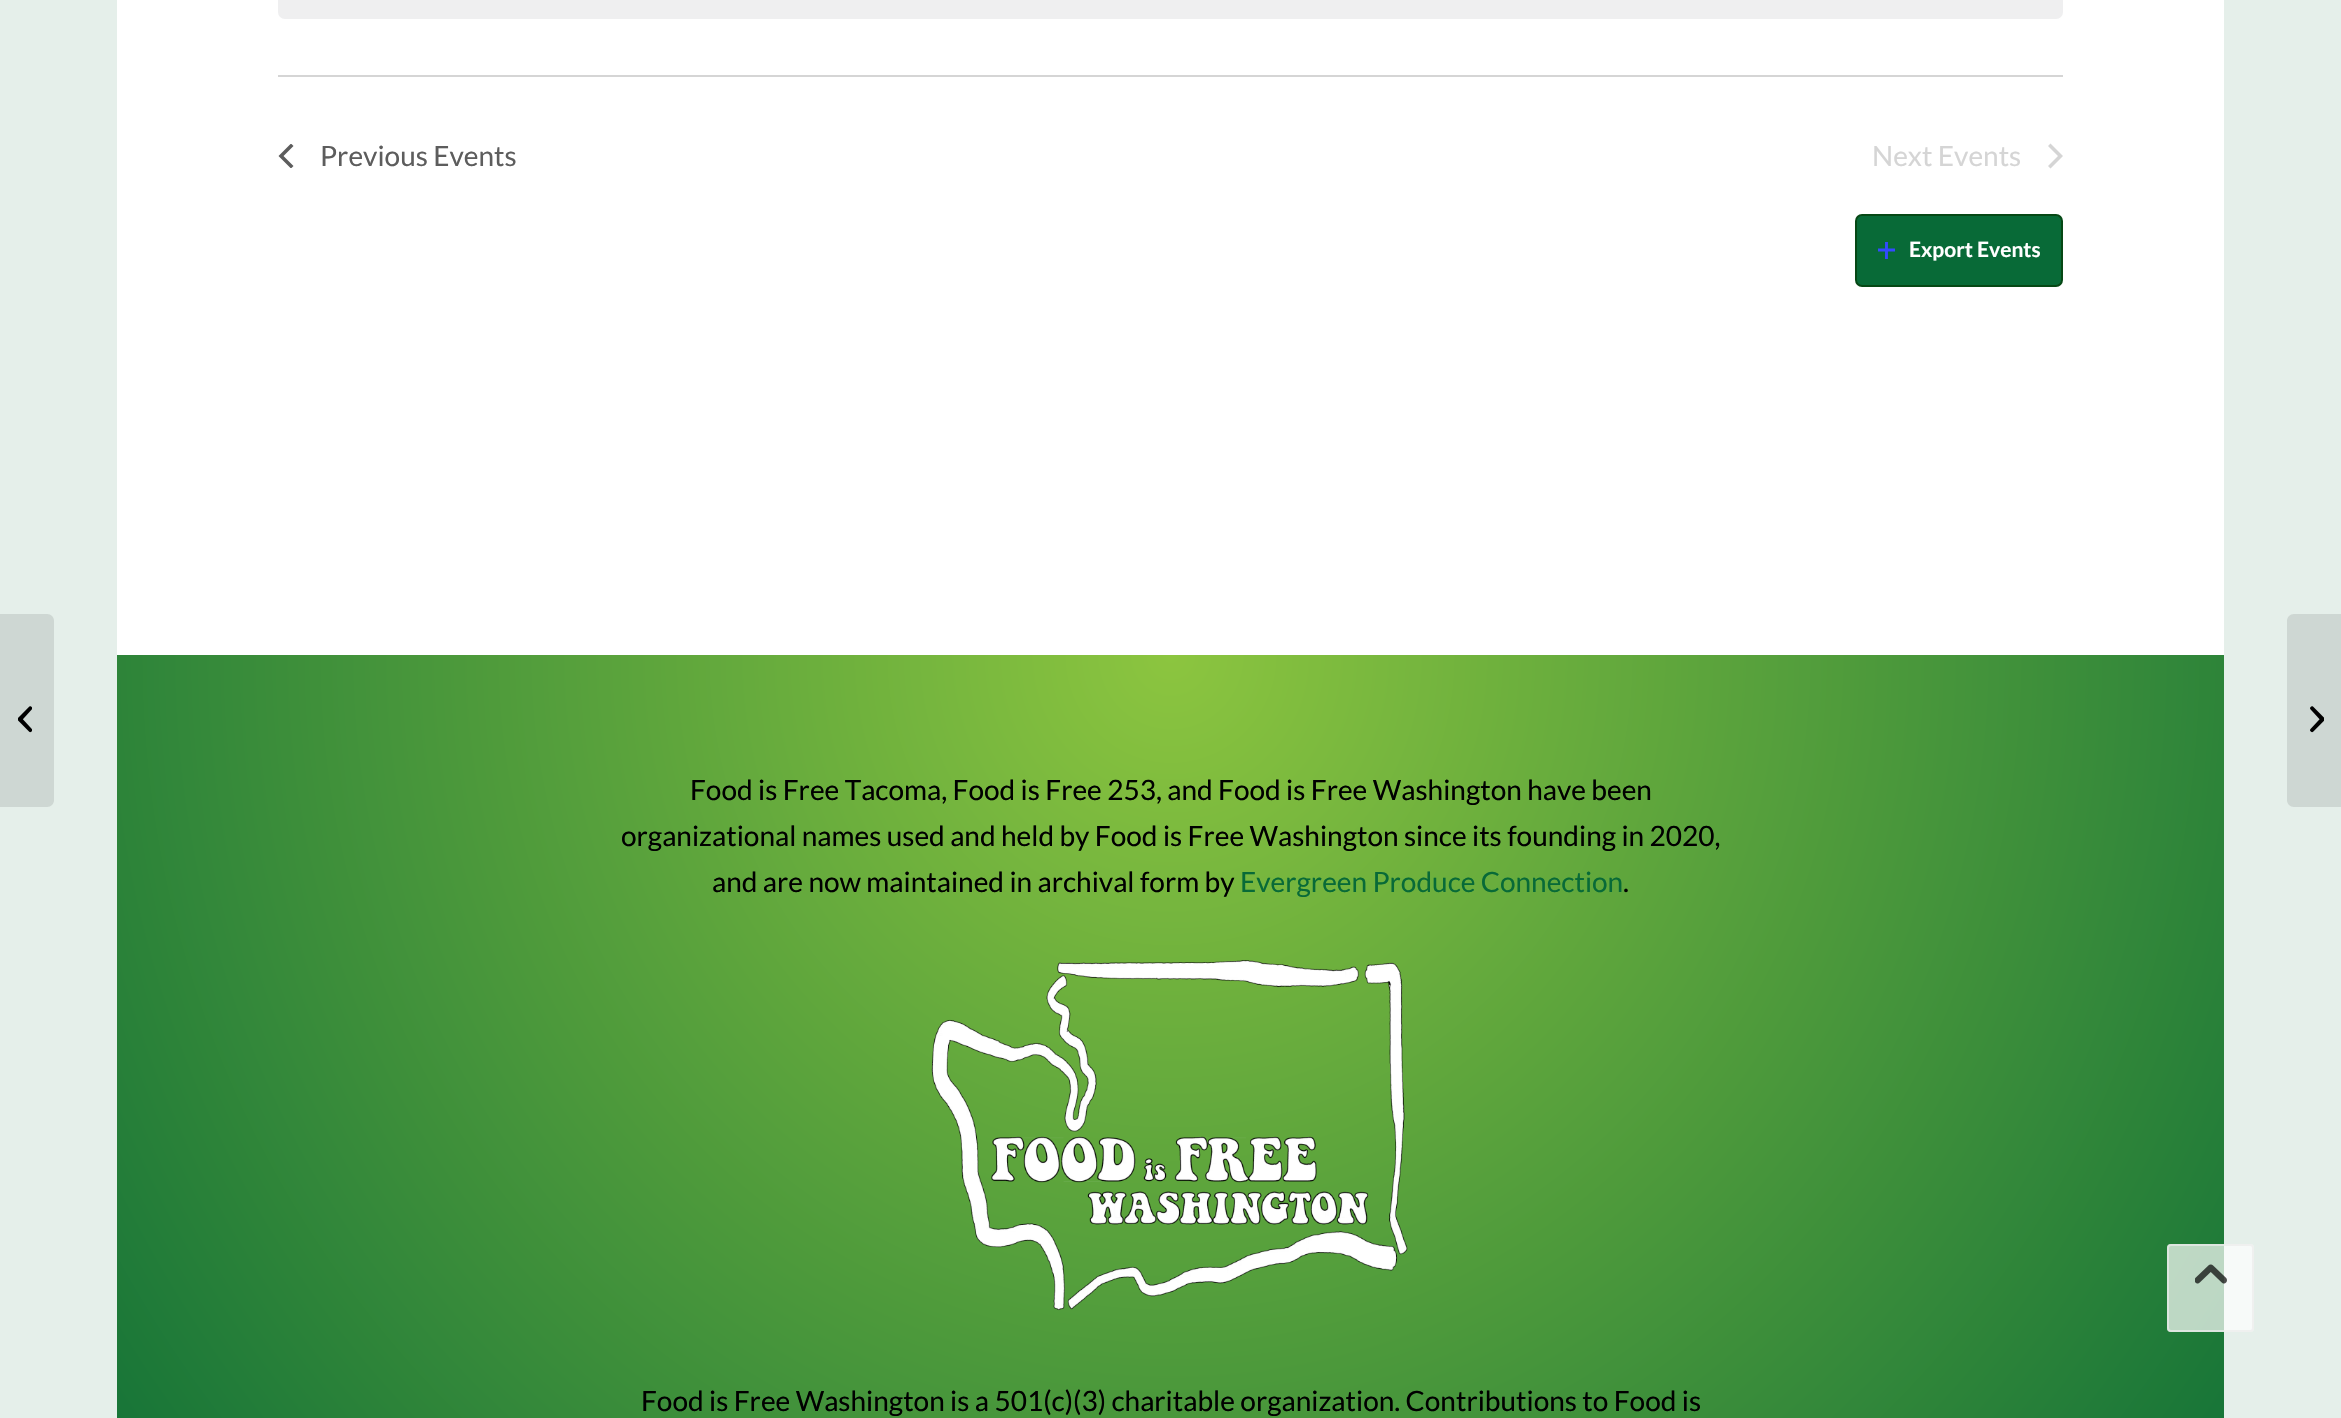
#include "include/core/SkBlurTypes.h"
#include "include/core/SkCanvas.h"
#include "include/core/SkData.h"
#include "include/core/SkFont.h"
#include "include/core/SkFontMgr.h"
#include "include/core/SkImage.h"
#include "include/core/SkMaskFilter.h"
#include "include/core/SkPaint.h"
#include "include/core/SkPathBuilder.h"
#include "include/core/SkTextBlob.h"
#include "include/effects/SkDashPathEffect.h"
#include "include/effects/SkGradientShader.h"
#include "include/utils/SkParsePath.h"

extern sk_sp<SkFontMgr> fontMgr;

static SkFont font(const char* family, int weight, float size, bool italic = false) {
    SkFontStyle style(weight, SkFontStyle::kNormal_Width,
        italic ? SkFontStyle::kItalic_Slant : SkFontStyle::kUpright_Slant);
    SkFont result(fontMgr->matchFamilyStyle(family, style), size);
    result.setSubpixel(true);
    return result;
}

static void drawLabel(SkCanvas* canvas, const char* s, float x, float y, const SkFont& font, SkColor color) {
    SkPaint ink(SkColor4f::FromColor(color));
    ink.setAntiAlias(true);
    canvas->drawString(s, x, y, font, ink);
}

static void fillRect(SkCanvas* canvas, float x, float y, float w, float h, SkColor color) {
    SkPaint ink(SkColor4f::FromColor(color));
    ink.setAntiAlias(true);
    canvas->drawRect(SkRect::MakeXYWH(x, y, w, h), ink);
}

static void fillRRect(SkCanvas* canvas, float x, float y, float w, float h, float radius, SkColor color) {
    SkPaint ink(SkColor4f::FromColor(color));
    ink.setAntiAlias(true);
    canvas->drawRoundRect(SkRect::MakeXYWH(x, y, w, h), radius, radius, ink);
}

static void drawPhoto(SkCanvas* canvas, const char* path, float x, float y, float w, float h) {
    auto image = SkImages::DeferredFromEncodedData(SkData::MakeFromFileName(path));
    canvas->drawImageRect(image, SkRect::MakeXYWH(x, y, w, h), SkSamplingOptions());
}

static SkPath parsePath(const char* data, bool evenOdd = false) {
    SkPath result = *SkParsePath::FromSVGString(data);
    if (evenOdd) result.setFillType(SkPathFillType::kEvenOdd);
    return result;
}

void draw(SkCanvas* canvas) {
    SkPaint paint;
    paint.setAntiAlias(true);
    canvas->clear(0xFFE5EFEA);
    paint.setColor(0xFFCED7D3);
    canvas->drawPath(parsePath("M0 614H47C51 614 54 617 54 621V800C54 804 51 807 47 807H0Z"), paint);
    drawPhoto(canvas, "assets/img1.png", 18, 706, 14, 27);
    fillRect(canvas, 117, 0, 2107, 655, 0xFFFFFFFF);
    fillRRect(canvas, 278, -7, 1785, 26, 7, 0xFFEFEFF0);
    fillRect(canvas, 278, 75, 1785, 2, 0xFFD5D5D5);
    canvas->save();
    canvas->clipRect(SkRect::MakeXYWH(278, 144, 16, 24));
    paint.setColor(0xFF5D5D5D);
    canvas->drawPath(parsePath("M293.5 166L291 168.5L278.5 156L291 143.5L293.5 146L283.5 156Z"), paint);
    canvas->restore();
    SkFont font1 = font("Lato", 400, 28);
    drawLabel(canvas, "Previous Events", 320, 166, font1, 0xFF5D5D5D);
    drawLabel(canvas, "Next Events", 1872, 166, font1, 0xFFD5D5D5);
    paint.setColor(0xFFD5D5D5);
    canvas->drawPath(parsePath("M2048 146L2050.5 143.5L2063 156L2050.5 168.5L2048 166L2058 156Z"), paint);
    paint.setColor(0xFF086A37);
    canvas->drawRoundRect(SkRect::MakeXYWH(1856, 215, 206, 71), 6, 6, paint);
    paint.setStroke(true);
    paint.setStrokeWidth(2);
    paint.setColor(0xFF064815);
    canvas->drawRoundRect(SkRect::MakeXYWH(1856, 215, 206, 71), 6, 6, paint);
    canvas->save();
    canvas->clipRect(SkRect::MakeXYWH(1878, 242, 17, 17));
    paint.setStrokeWidth(2.9f);
    paint.setStrokeCap(SkPaint::kSquare_Cap);
    paint.setColor(0xFF334AFF);
    canvas->drawPath(parsePath("M1894 250H1879M1886.5 243V257.5"), paint);
    canvas->restore();
    SkFont font2 = font("Lato", 700, 21);
    drawLabel(canvas, "Export Events", 1909, 257, font2, 0xFFFFFFFF);
    paint.setStroke(false);
    {
        const SkColor colors[] = {0xFF8CC53F, 0xFF066937};
        const float stops[] = {0, 1};
        SkMatrix m = SkMatrix::Translate(1171, 655).preScale(1490, 1525);
        paint.setShader(SkGradientShader::MakeRadial({0, 0}, 1, colors, stops, 2, SkTileMode::kClamp, 0, &m));
        paint.setAlpha(255);
    }
    canvas->drawRect(SkRect::MakeXYWH(117, 655, 2107, 763), paint);
    drawLabel(canvas, "Food is Free Tacoma, Food is Free 253, and Food is Free Washington have been", 690, 800, font1, 0xFF000000);
    drawLabel(canvas, "organizational names used and held by Food is Free Washington since its founding in 2020,", 621, 846, font1, 0xFF000000);
    drawLabel(canvas, "and are now maintained in archival form by", 712, 892, font1, 0xFF000000);
    drawLabel(canvas, "Evergreen Produce Connection", 1240, 892, font1, 0xFF086A37);
    drawLabel(canvas, ".", 1623, 892, font1, 0xFF000000);
    drawPhoto(canvas, "assets/img2.png", 931, 960, 477, 351);
    drawLabel(canvas, "Food is Free Washington is a 501(c)(3) charitable organization. Contributions to Food is", 641, 1411, font1, 0xFF000000);
    paint.setShader(nullptr);
    paint.setColor(0xFFCED7D3);
    canvas->drawPath(parsePath("M2294 614H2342V807H2294C2290 807 2287 804 2287 800V621C2287 617 2290 614 2294 614Z"), paint);
    drawPhoto(canvas, "assets/img3.png", 2310, 706, 14, 27);
    fillRRect(canvas, 2167, 1244, 87, 88, 4, 0xB3FFFFFF);
    paint.setStroke(true);
    paint.setStrokeWidth(2);
    paint.setStrokeCap(SkPaint::kButt_Cap);
    paint.setColor(0xB3EBEBEB);
    canvas->drawRoundRect(SkRect::MakeXYWH(2168, 1245, 85, 86), 3, 3, paint);
    drawPhoto(canvas, "assets/img4.png", 2195, 1264, 32, 20);
}
